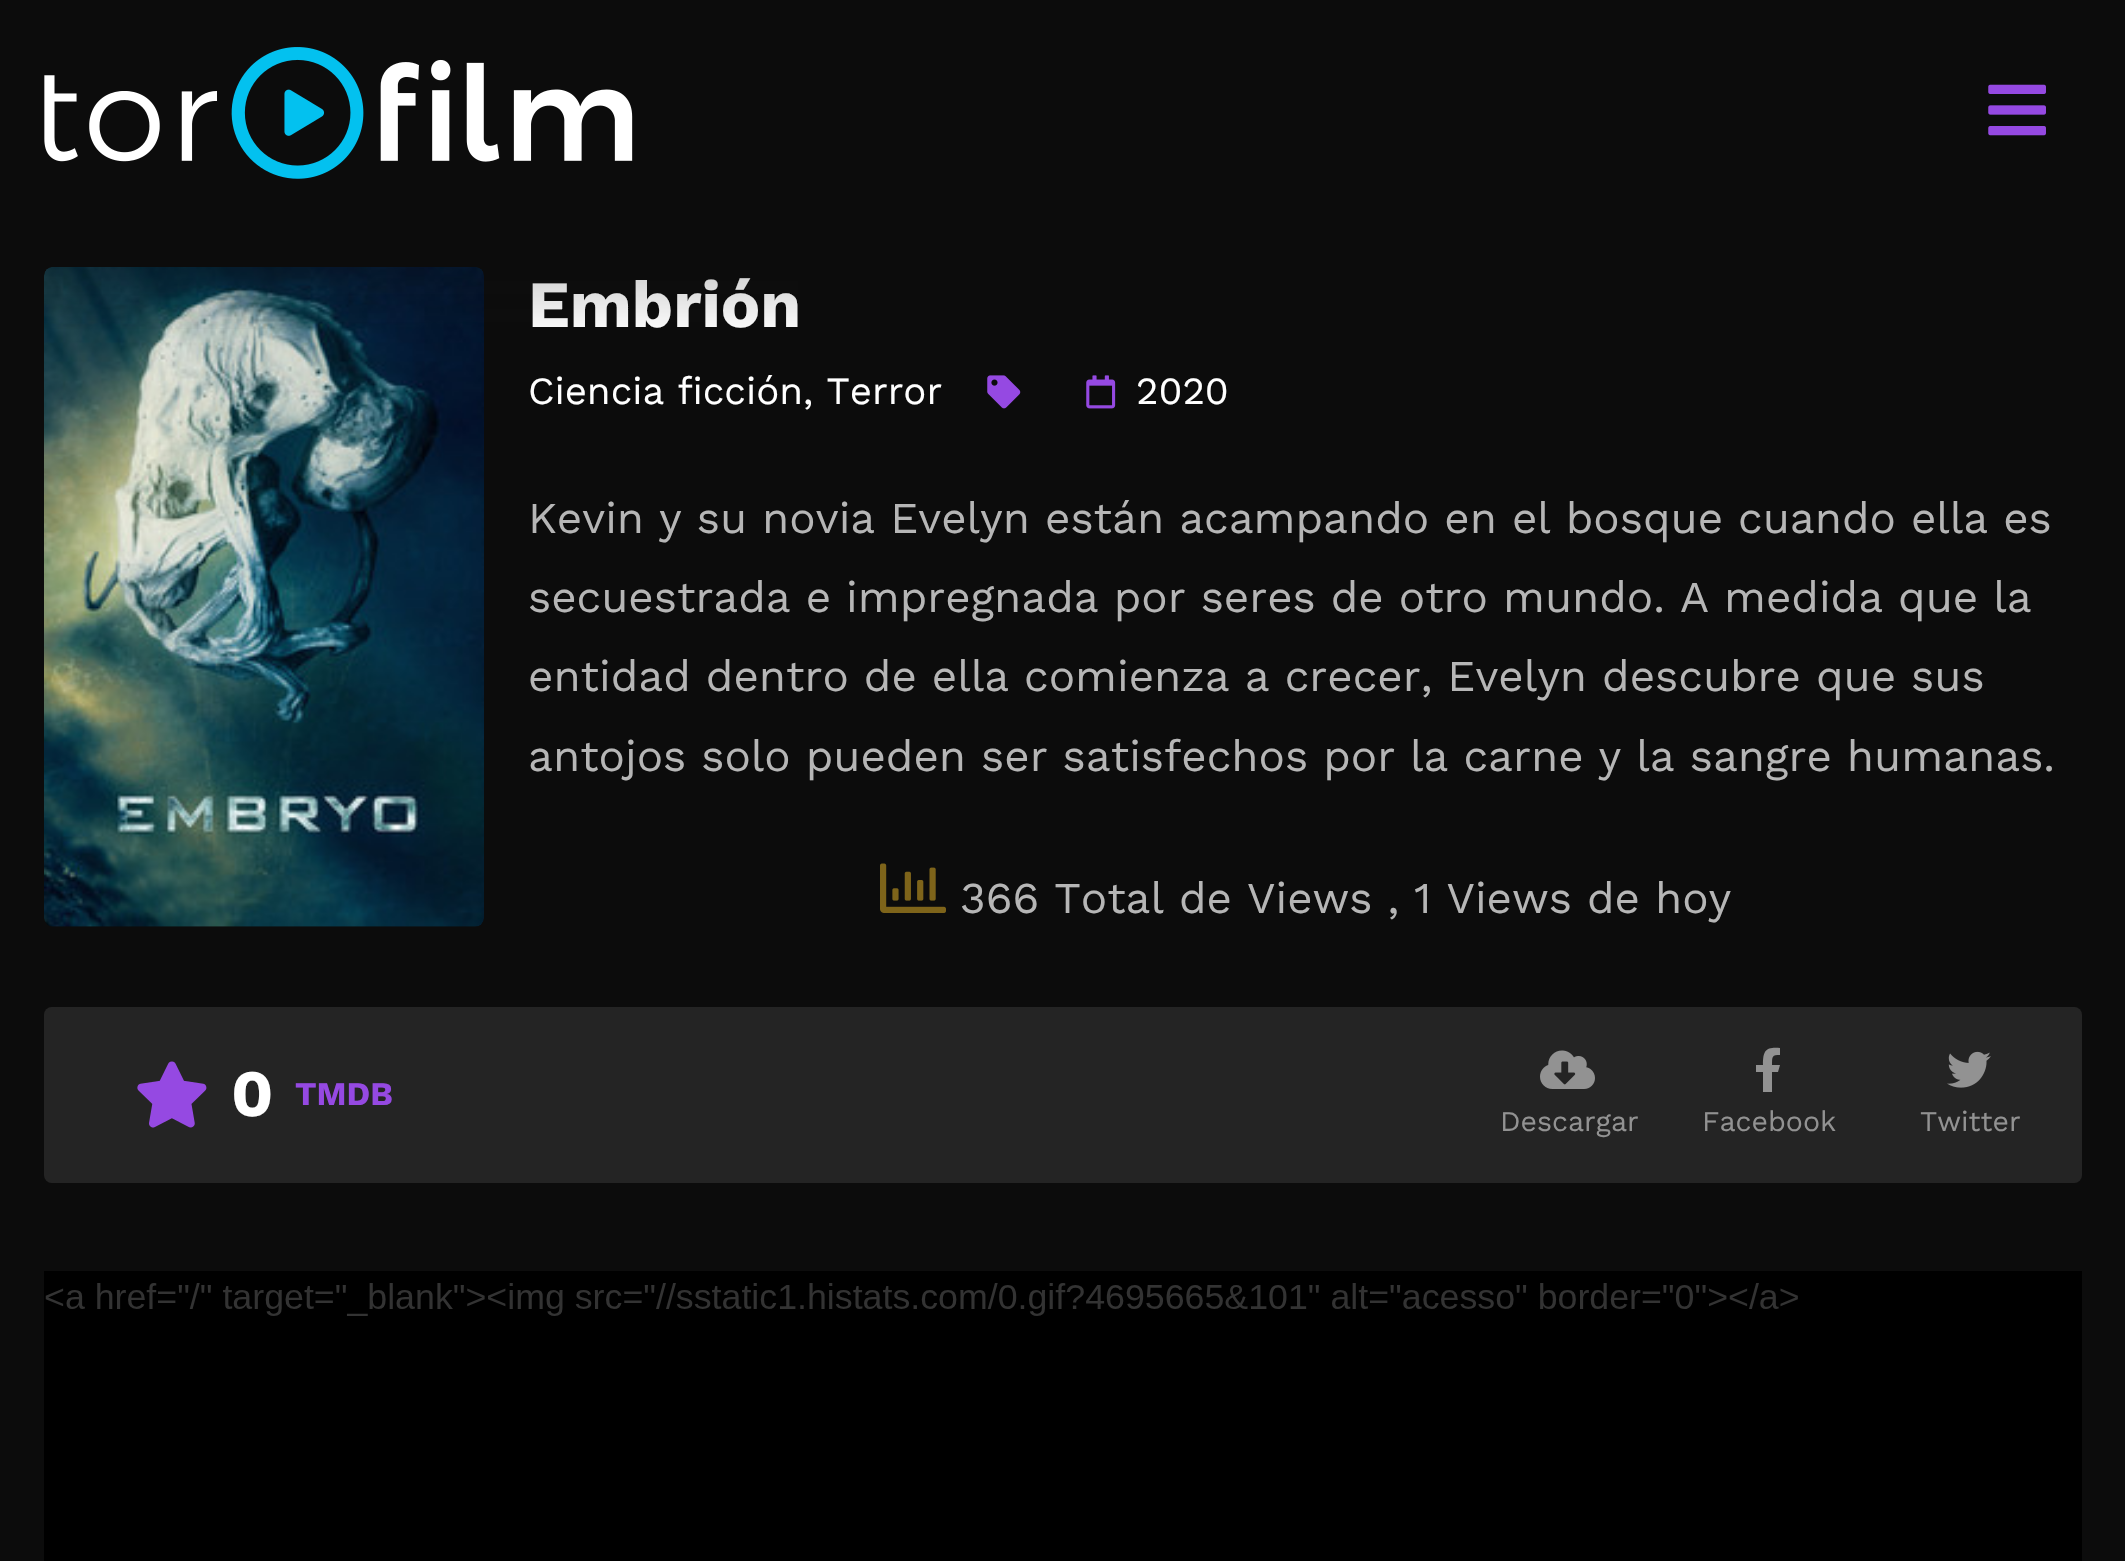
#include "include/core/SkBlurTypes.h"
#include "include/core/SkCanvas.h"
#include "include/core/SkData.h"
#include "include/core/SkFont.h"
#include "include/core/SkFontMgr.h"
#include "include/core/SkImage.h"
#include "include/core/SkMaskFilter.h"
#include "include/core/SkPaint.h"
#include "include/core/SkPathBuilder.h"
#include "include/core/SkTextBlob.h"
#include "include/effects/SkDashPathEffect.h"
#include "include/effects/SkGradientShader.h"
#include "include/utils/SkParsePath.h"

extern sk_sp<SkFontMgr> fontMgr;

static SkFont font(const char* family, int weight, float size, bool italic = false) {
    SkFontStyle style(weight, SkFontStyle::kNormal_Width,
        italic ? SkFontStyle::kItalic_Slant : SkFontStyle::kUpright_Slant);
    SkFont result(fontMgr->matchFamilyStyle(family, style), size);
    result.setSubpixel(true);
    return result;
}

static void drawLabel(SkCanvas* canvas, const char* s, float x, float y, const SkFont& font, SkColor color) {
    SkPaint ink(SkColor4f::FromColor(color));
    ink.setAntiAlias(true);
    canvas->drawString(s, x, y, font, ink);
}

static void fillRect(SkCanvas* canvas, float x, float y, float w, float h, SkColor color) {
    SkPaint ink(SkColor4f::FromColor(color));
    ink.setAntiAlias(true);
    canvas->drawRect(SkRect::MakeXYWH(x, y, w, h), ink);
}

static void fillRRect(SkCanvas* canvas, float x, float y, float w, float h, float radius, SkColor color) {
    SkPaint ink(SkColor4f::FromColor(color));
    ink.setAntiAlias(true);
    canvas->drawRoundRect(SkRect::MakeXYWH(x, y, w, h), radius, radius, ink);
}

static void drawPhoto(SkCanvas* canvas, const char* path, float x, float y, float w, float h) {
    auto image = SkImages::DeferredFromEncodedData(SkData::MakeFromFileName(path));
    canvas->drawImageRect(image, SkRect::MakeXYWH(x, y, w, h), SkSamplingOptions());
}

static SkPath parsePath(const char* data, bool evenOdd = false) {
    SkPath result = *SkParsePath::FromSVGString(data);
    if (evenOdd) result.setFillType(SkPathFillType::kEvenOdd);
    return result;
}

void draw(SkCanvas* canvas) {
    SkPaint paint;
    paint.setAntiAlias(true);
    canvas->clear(0xFF0C0C0C);
    drawPhoto(canvas, "assets/img1.png", 44, 47, 589, 132);
    drawPhoto(canvas, "assets/img2.png", 1988, 84, 58, 52);
    drawPhoto(canvas, "assets/img3.png", 44, 267, 440, 660);
    SkFont font1 = font("Work Sans", 700, 66);
    drawLabel(canvas, "Embrión", 528, 327, font1, 0xFFFFFFFF);
    {
        const SkColor colors[] = {0xFF0C0C0C, 0x000C0C0C};
        const float stops[] = {0, 1};
        const SkPoint ends[] = {{1063, 0}, {1063, 336}};
        paint.setShader(SkGradientShader::MakeLinear(ends, colors, stops, 2, SkTileMode::kClamp));
        paint.setAlpha(255);
    }
    canvas->drawRect(SkRect::MakeXYWH(44, 267, 754, 62), paint);
    SkFont font2 = font("Work Sans", 400, 38.5f);
    drawLabel(canvas, "Ciencia ficción, Terror", 528, 404, font2, 0xFFFFFFFF);
    drawPhoto(canvas, "assets/img4.png", 987, 375, 34, 34);
    drawPhoto(canvas, "assets/img5.png", 1086, 375, 30, 34);
    drawLabel(canvas, "2020", 1136, 404, font2, 0xFFFFFFFF);
    SkFont font3 = font("Work Sans", 400, 44);
    drawLabel(canvas, "Kevin y su novia Evelyn están acampando en el bosque cuando ella es", 528, 533, font3, 0xFFB6B6B6);
    drawLabel(canvas, "secuestrada e impregnada por seres de otro mundo. A medida que la", 528, 612, font3, 0xFFB6B6B6);
    drawLabel(canvas, "entidad dentro de ella comienza a crecer, Evelyn descubre que sus", 528, 691, font3, 0xFFB6B6B6);
    drawLabel(canvas, "antojos solo pueden ser satisfechos por la carne y la sangre humanas.", 528, 771, font3, 0xFFB6B6B6);
    drawPhoto(canvas, "assets/img6.png", 880, 863, 66, 50);
    drawLabel(canvas, "366 Total de Views , 1 Views de hoy", 960, 913, font3, 0xFFB6B6B6);
    fillRRect(canvas, 44, 1007, 2038, 176, 8, 0xFF242424);
    drawPhoto(canvas, "assets/img7.png", 137, 1061, 70, 67);
    drawLabel(canvas, "0", 231, 1116, font1, 0xFFFFFFFF);
    SkFont font4 = font("Work Sans", 700, 33);
    drawLabel(canvas, "TMDB", 295, 1105, font4, 0xFF9549E2);
    drawPhoto(canvas, "assets/img8.png", 1540, 1050, 55, 39);
    SkFont font5 = font("Work Sans", 400, 28.5f);
    drawLabel(canvas, "Descargar", 1500, 1131, font5, 0xFF929292);
    paint.setShader(nullptr);
    paint.setColor(0xFF929292);
    canvas->drawPath(parsePath("M1778 1072H1772V1092H1763V1072H1756V1065H1763C1763 1050 1766 1047 1780 1048V1055C1772 1055 1772 1056 1772 1065H1780Z"), paint);
    drawLabel(canvas, "Facebook", 1702, 1131, font5, 0xFF929292);
    drawPhoto(canvas, "assets/img9.png", 1947, 1051, 44, 37);
    drawLabel(canvas, "Twitter", 1920, 1131, font5, 0xFF929292);
    fillRect(canvas, 44, 1271, 2038, 290, 0xFF000000);
    drawPhoto(canvas, "assets/img10.png", 45, 1283, 1753, 33);
}
